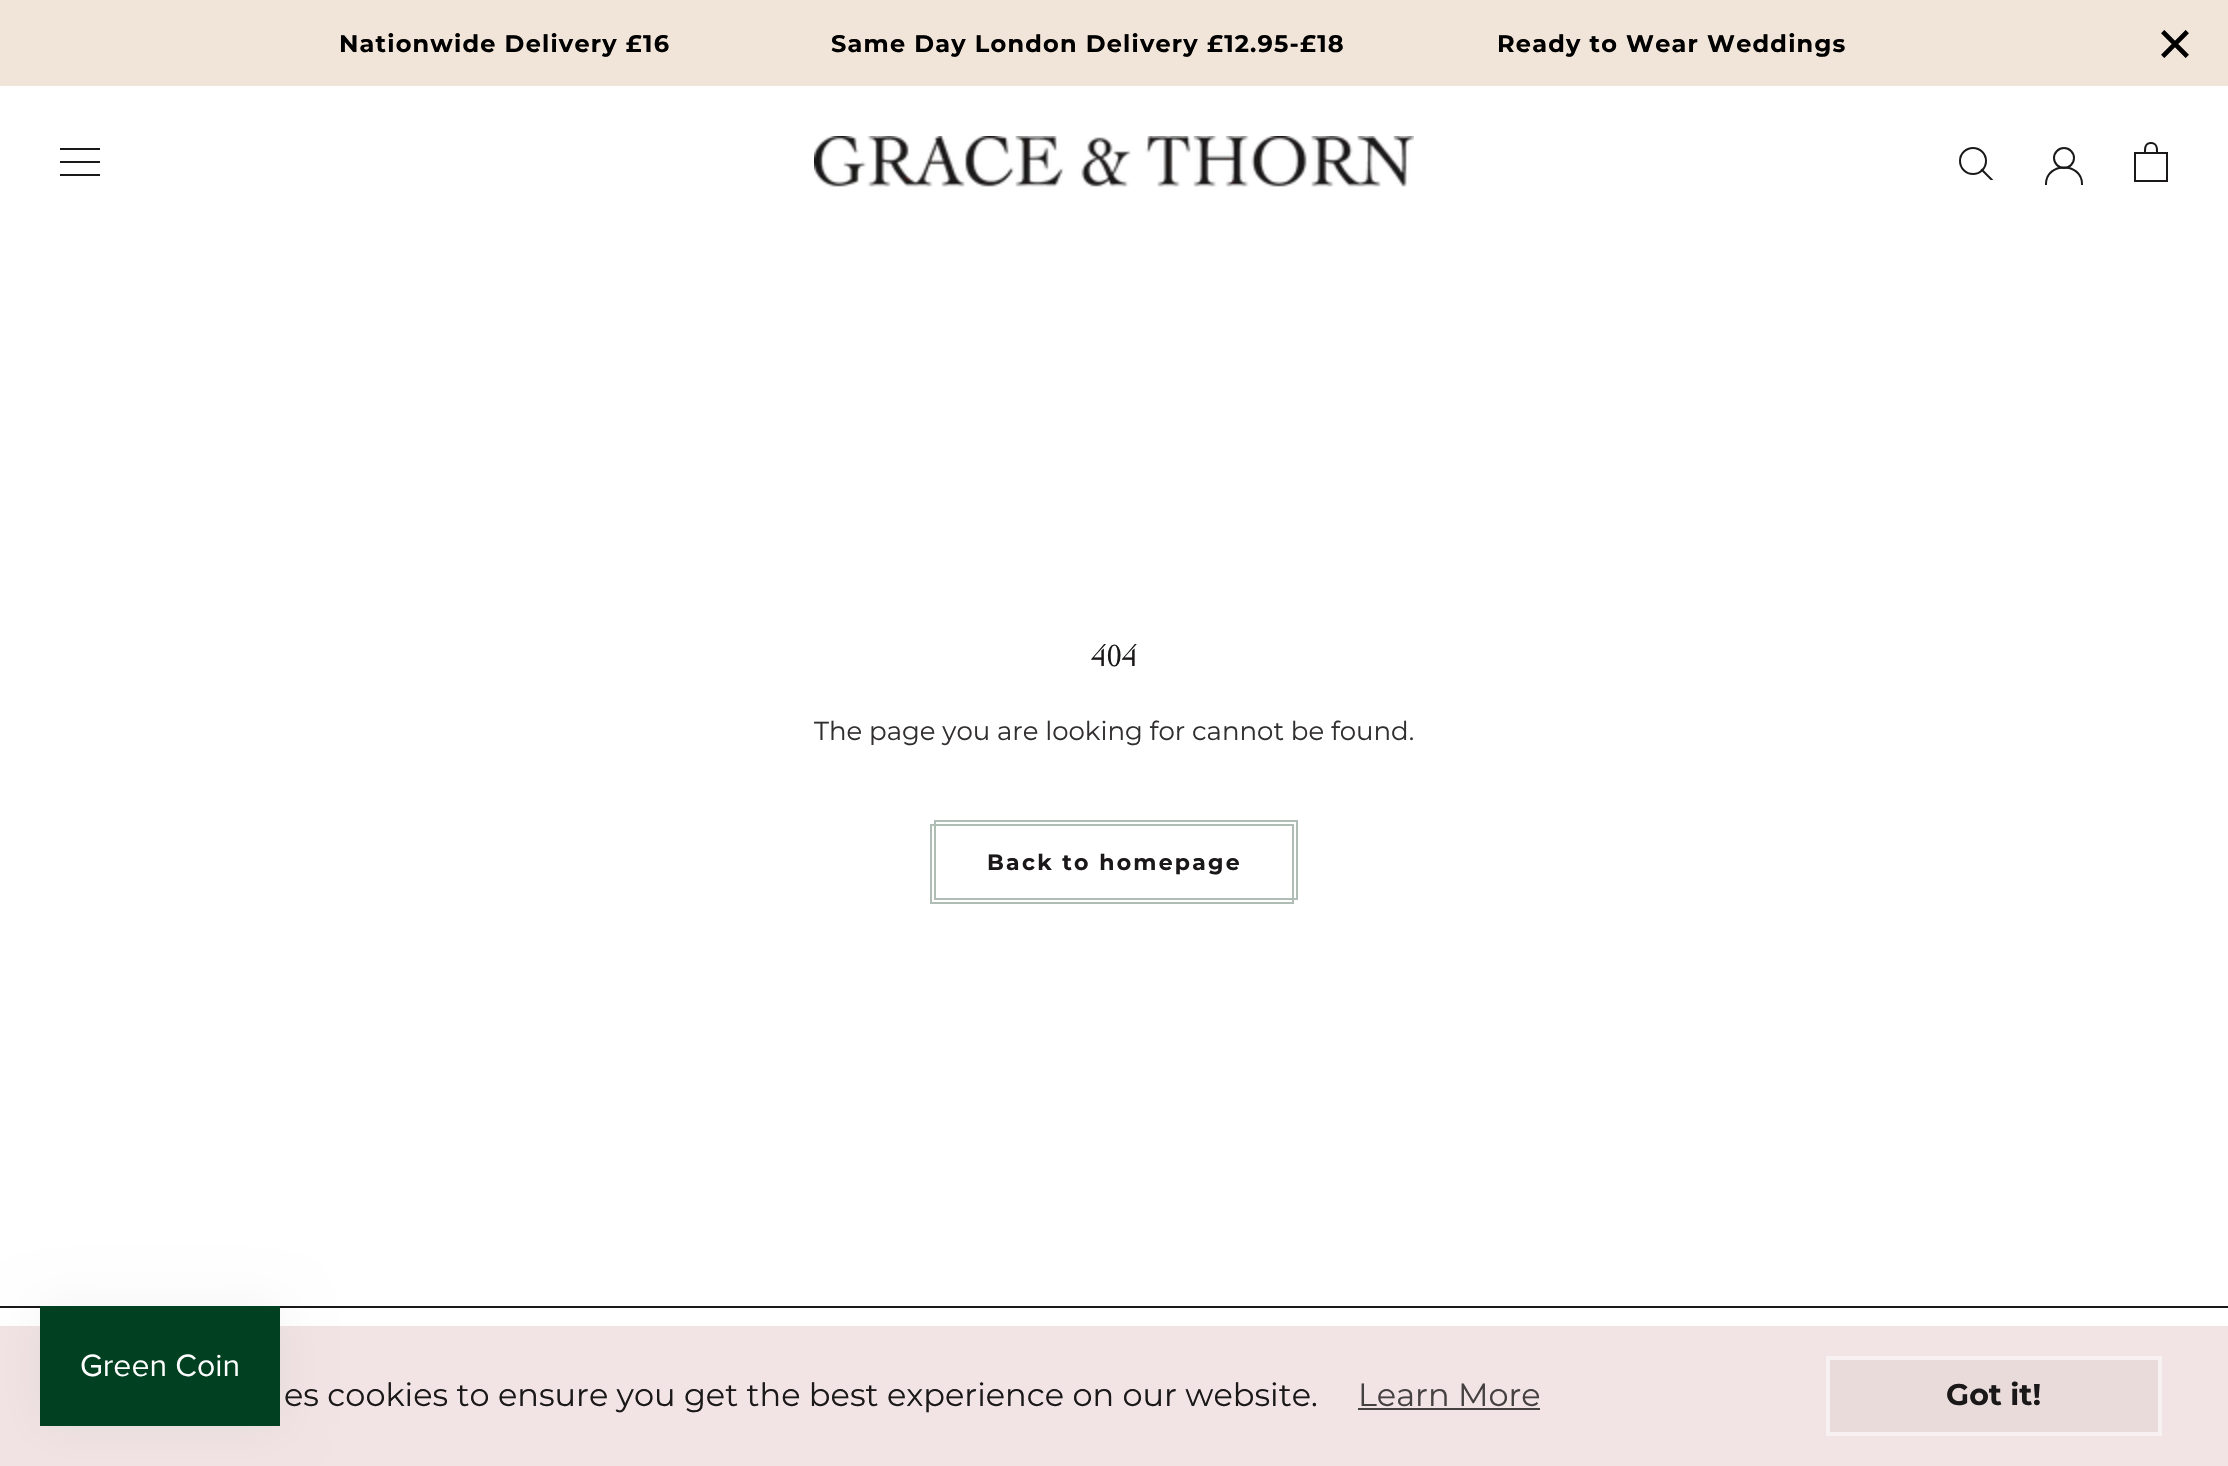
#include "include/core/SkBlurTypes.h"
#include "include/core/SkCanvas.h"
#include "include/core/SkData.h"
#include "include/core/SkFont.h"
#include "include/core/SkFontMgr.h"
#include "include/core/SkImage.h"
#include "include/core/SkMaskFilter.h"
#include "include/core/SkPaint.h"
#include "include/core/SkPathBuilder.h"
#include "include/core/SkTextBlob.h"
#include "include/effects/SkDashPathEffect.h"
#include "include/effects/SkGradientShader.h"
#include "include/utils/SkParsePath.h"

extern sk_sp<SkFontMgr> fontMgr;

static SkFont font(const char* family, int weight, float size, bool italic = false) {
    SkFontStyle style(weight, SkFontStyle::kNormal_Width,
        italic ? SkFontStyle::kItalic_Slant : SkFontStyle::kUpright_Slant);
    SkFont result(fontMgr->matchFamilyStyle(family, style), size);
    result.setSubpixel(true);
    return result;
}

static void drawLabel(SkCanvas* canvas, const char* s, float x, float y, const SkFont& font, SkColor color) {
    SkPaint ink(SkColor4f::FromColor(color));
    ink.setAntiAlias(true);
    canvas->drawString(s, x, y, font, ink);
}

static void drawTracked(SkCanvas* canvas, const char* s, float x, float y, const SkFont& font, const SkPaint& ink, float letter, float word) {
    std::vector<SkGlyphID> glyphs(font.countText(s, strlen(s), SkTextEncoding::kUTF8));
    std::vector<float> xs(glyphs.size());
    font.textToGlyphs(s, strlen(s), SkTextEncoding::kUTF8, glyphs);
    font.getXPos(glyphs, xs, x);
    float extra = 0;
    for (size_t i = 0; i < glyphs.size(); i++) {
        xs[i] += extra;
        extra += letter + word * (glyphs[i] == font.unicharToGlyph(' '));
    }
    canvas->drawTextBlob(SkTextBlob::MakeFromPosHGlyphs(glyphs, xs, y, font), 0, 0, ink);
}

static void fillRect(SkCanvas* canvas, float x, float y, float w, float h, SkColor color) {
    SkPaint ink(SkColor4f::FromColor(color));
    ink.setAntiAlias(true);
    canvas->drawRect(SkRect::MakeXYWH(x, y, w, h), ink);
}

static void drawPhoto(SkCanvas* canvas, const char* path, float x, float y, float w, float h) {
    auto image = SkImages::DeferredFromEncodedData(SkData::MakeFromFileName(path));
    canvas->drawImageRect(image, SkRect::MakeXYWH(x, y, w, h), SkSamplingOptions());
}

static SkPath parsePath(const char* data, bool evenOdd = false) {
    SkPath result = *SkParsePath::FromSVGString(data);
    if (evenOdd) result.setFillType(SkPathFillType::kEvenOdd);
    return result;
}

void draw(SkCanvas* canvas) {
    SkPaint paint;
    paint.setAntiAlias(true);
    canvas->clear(0xFFFFFFFF);
    fillRect(canvas, 0, 0, 2228, 86, 0xFFF1E4D8);
    SkFont font1 = font("Montserrat", 700, 24);
    paint.setColor(0xFF000000);
    drawTracked(canvas, "Nationwide Delivery £16", 339, 52, font1, paint, 1.2f, 0);
    drawTracked(canvas, "Same Day London Delivery £12.95-£18", 831, 52, font1, paint, 1.2f, 0);
    drawTracked(canvas, "Ready to Wear Weddings", 1497, 52, font1, paint, 1.2f, 0);
    SkFont font2 = font("Montserrat", 100, 80);
    drawLabel(canvas, "×", 2152, 72, font2, 0xFF000000);
    paint.setColor(0xFF1A1818);
    canvas->drawPath(parsePath("M60 176V174H100V176ZM60 161H100V163H60ZM60 148H100V150H60Z"), paint);
    drawPhoto(canvas, "assets/img1.png", 814, 136, 600, 51);
    canvas->save();
    canvas->clipRect(SkRect::MakeXYWH(1958, 146, 36, 34));
    paint.setStroke(true);
    paint.setStrokeWidth(2);
    paint.setStrokeCap(SkPaint::kSquare_Cap);
    canvas->drawPath(parsePath("M1992 180L1982 170"), paint);
    canvas->restore();
    paint.setStrokeCap(SkPaint::kButt_Cap);
    canvas->drawCircle(1973, 161, 13, paint);
    paint.setStrokeCap(SkPaint::kSquare_Cap);
    canvas->drawPath(parsePath("M2046 184C2046 162 2082 162 2082 184"), paint);
    paint.setStrokeCap(SkPaint::kButt_Cap);
    canvas->drawCircle(2064, 158, 10, paint);
    drawPhoto(canvas, "assets/img2.png", 2134, 142, 34, 40);
    SkFont font3 = font("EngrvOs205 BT", 400, 32);
    drawLabel(canvas, "404", 1091, 666, font3, 0xFF1A1818);
    SkFont font4 = font("Montserrat", 100, 26);
    drawLabel(canvas, "The page you are looking for cannot be found.", 814, 740, font4, 0xFF322F31);
    paint.setColor(0xFFB0BDB4);
    canvas->drawRect(SkRect::MakeXYWH(935, 821, 362, 78), paint);
    canvas->drawRect(SkRect::MakeXYWH(931, 825, 362, 78), paint);
    SkFont font5 = font("Montserrat", 700, 22);
    paint.setStroke(false);
    paint.setColor(0xFF1A1818);
    drawTracked(canvas, "Back to homepage", 987, 870, font5, paint, 2.25f, 0);
    fillRect(canvas, 0, 1306, 2228, 2, 0xFF1A1818);
    fillRect(canvas, 0, 1326, 2228, 140, 0xFFF2E4E4);
    paint.setColor(0x0D000000);
    paint.setMaskFilter(SkMaskFilter::MakeBlur(kNormal_SkBlurStyle, 25));
    canvas->drawRect(SkRect::MakeXYWH(40, 1306, 240, 120), paint);
    paint.setMaskFilter(nullptr);
    drawPhoto(canvas, "assets/img3.png", 40, 1306, 240, 120);
    SkFont font6 = font("Montserrat", 100, 32);
    drawLabel(canvas, "es cookies to ensure you get the best experience on our website.", 284, 1406, font6, 0xFF1A1818);
    drawLabel(canvas, "Learn More", 1358, 1406, font6, 0xFF454141);
    fillRect(canvas, 1358, 1408, 182, 2, 0xFF454141);
    paint.setColor(0xFFEADBDB);
    canvas->drawRect(SkRect::MakeXYWH(1828, 1358, 332, 76), paint);
    paint.setStroke(true);
    paint.setStrokeWidth(4);
    paint.setColor(0xFFF8F1F1);
    canvas->drawRect(SkRect::MakeXYWH(1828, 1358, 332, 76), paint);
    SkFont font7 = font("Montserrat", 700, 30);
    drawLabel(canvas, "Got it!", 1946, 1405, font7, 0xFF1A1818);
}
